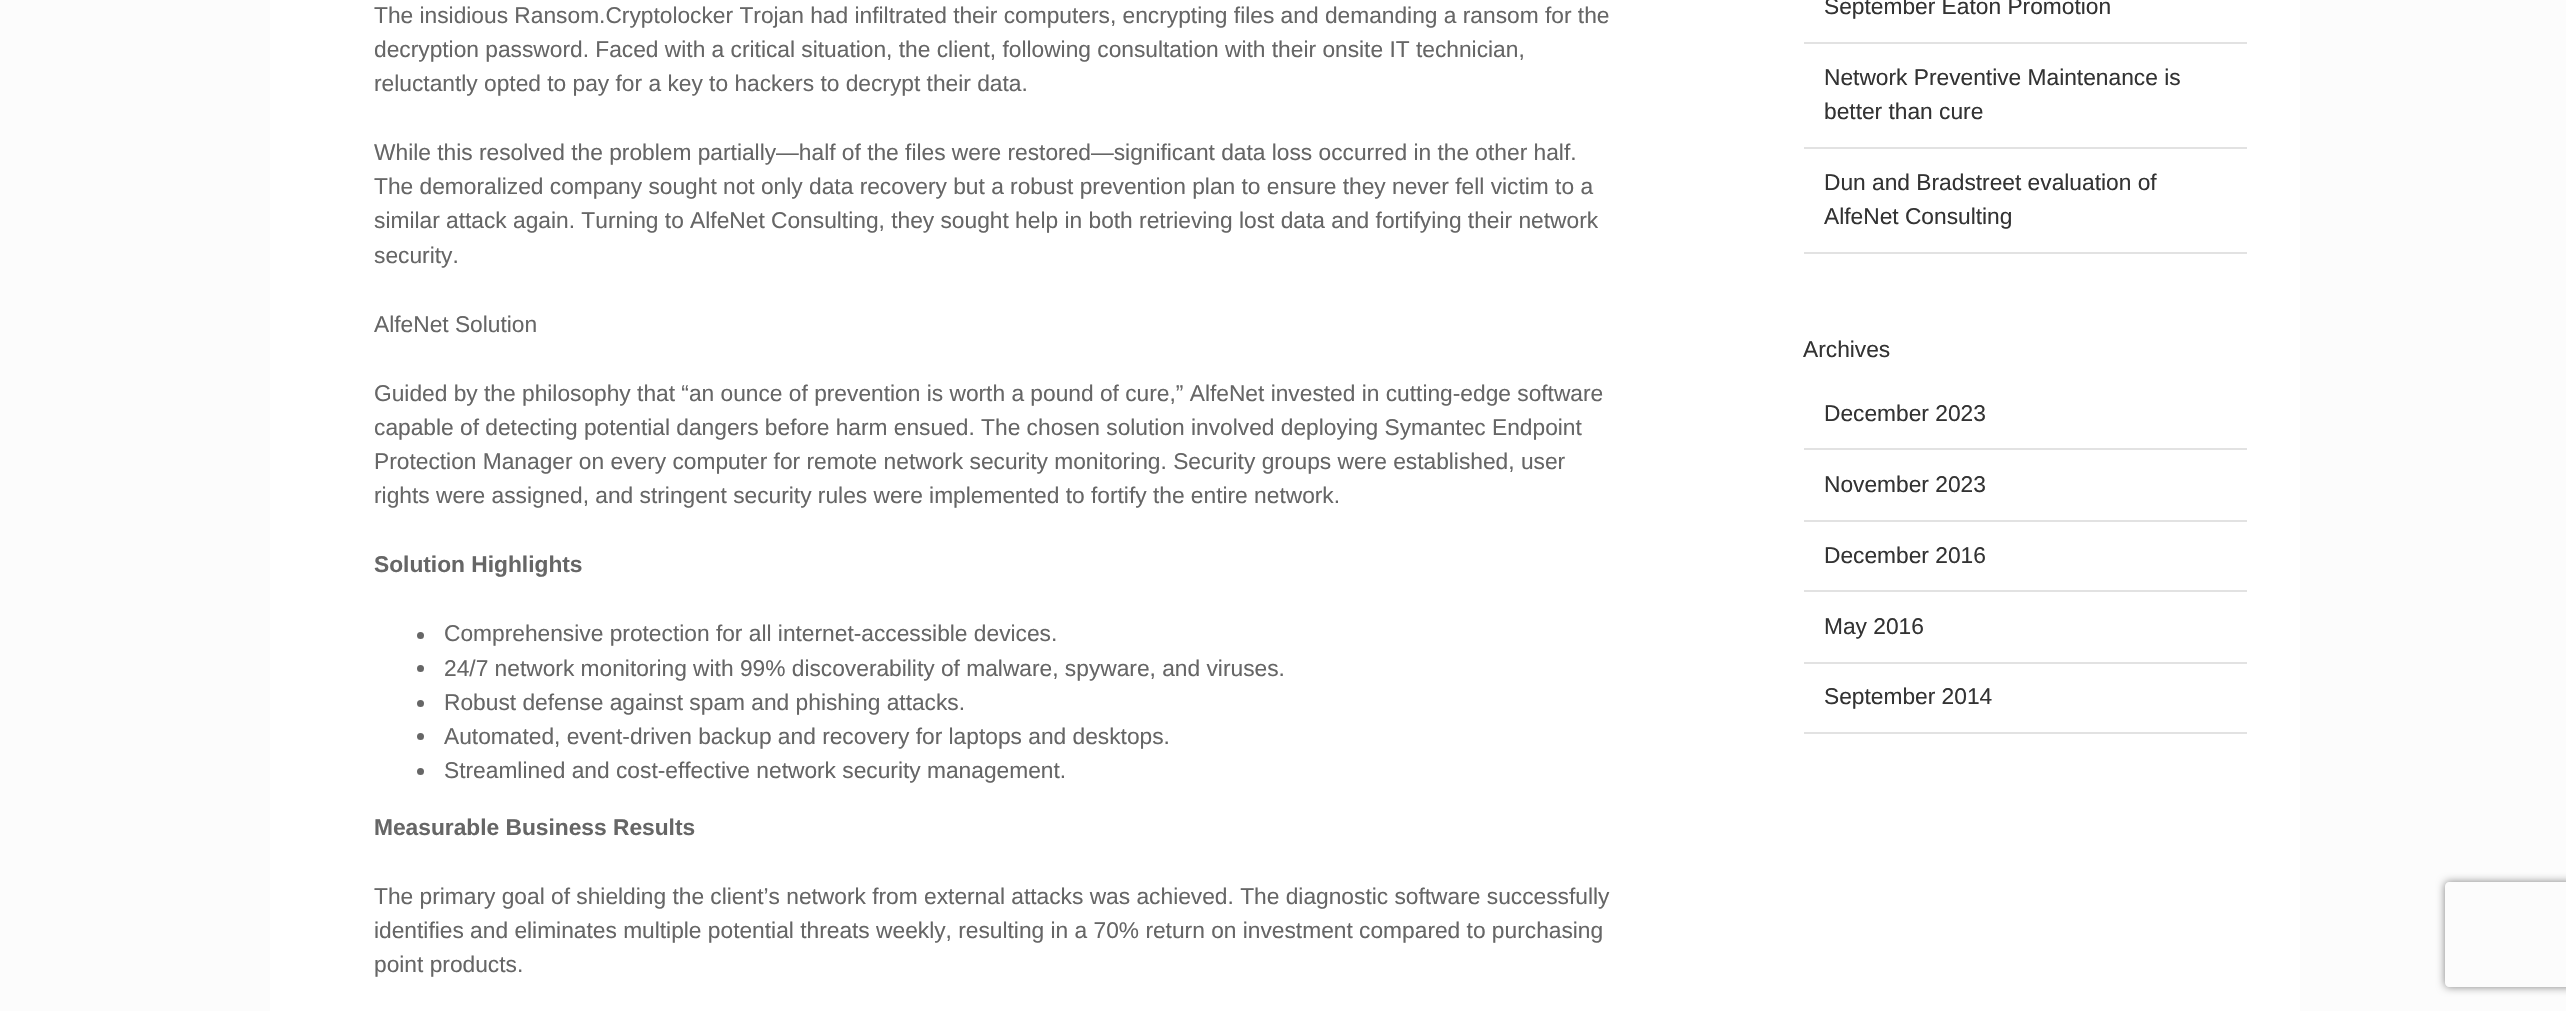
#include "include/core/SkBlurTypes.h"
#include "include/core/SkCanvas.h"
#include "include/core/SkData.h"
#include "include/core/SkFont.h"
#include "include/core/SkFontMgr.h"
#include "include/core/SkImage.h"
#include "include/core/SkMaskFilter.h"
#include "include/core/SkPaint.h"
#include "include/core/SkPathBuilder.h"
#include "include/core/SkTextBlob.h"
#include "include/effects/SkDashPathEffect.h"
#include "include/effects/SkGradientShader.h"
#include "include/utils/SkParsePath.h"

extern sk_sp<SkFontMgr> fontMgr;

static SkFont font(const char* family, int weight, float size, bool italic = false) {
    SkFontStyle style(weight, SkFontStyle::kNormal_Width,
        italic ? SkFontStyle::kItalic_Slant : SkFontStyle::kUpright_Slant);
    SkFont result(fontMgr->matchFamilyStyle(family, style), size);
    result.setSubpixel(true);
    return result;
}

static void drawLabel(SkCanvas* canvas, const char* s, float x, float y, const SkFont& font, SkColor color) {
    SkPaint ink(SkColor4f::FromColor(color));
    ink.setAntiAlias(true);
    canvas->drawString(s, x, y, font, ink);
}

static void fillRect(SkCanvas* canvas, float x, float y, float w, float h, SkColor color) {
    SkPaint ink(SkColor4f::FromColor(color));
    ink.setAntiAlias(true);
    canvas->drawRect(SkRect::MakeXYWH(x, y, w, h), ink);
}

static SkPath parsePath(const char* data, bool evenOdd = false) {
    SkPath result = *SkParsePath::FromSVGString(data);
    if (evenOdd) result.setFillType(SkPathFillType::kEvenOdd);
    return result;
}

void draw(SkCanvas* canvas) {
    SkPaint paint;
    paint.setAntiAlias(true);
    canvas->clear(0xFFFCFCFC);
    fillRect(canvas, 270, 0, 2030, 1011, 0xFFFFFFFF);
    SkFont font1 = font("Liberation Sans", 400, 22.75f);
    drawLabel(canvas, "The insidious Ransom.Cryptolocker Trojan had infiltrated their computers, encrypting files and demanding a ransom for the", 374, 23, font1, 0xFF666666);
    drawLabel(canvas, "decryption password. Faced with a critical situation, the client, following consultation with their onsite IT technician,", 374, 57, font1, 0xFF666666);
    drawLabel(canvas, "reluctantly opted to pay for a key to hackers to decrypt their data.", 374, 91, font1, 0xFF666666);
    drawLabel(canvas, "While this resolved the problem partially—half of the files were restored—significant data loss occurred in the other half.", 374, 160, font1, 0xFF666666);
    drawLabel(canvas, "The demoralized company sought not only data recovery but a robust prevention plan to ensure they never fell victim to a", 374, 194, font1, 0xFF666666);
    drawLabel(canvas, "similar attack again. Turning to AlfeNet Consulting, they sought help in both retrieving lost data and fortifying their network", 374, 228, font1, 0xFF666666);
    drawLabel(canvas, "security.", 374, 263, font1, 0xFF666666);
    drawLabel(canvas, "AlfeNet Solution", 374, 332, font1, 0xFF666666);
    drawLabel(canvas, "Guided by the philosophy that “an ounce of prevention is worth a pound of cure,” AlfeNet invested in cutting-edge software", 374, 401, font1, 0xFF666666);
    drawLabel(canvas, "capable of detecting potential dangers before harm ensued. The chosen solution involved deploying Symantec Endpoint", 374, 435, font1, 0xFF666666);
    drawLabel(canvas, "Protection Manager on every computer for remote network security monitoring. Security groups were established, user", 374, 469, font1, 0xFF666666);
    drawLabel(canvas, "rights were assigned, and stringent security rules were implemented to fortify the entire network.", 374, 503, font1, 0xFF666666);
    SkFont font2 = font("Liberation Sans", 700, 22.75f);
    drawLabel(canvas, "Solution Highlights", 374, 572, font2, 0xFF666666);
    paint.setColor(0xFF666666);
    canvas->drawCircle(420.5f, 635.5f, 3.5f, paint);
    drawLabel(canvas, "Comprehensive protection for all internet-accessible devices.", 444, 641, font1, 0xFF666666);
    canvas->drawCircle(420.5f, 668.5f, 3.5f, paint);
    drawLabel(canvas, "24/7 network monitoring with 99% discoverability of malware, spyware, and viruses.", 444, 676, font1, 0xFF666666);
    canvas->drawCircle(420.5f, 703.5f, 3.5f, paint);
    drawLabel(canvas, "Robust defense against spam and phishing attacks.", 444, 710, font1, 0xFF666666);
    canvas->drawCircle(420.5f, 736.5f, 3.5f, paint);
    drawLabel(canvas, "Automated, event-driven backup and recovery for laptops and desktops.", 444, 744, font1, 0xFF666666);
    canvas->drawCircle(420.5f, 771.5f, 3.5f, paint);
    drawLabel(canvas, "Streamlined and cost-effective network security management.", 444, 778, font1, 0xFF666666);
    drawLabel(canvas, "Measurable Business Results", 374, 835, font2, 0xFF666666);
    drawLabel(canvas, "The primary goal of shielding the client’s network from external attacks was achieved. The diagnostic software successfully", 374, 904, font1, 0xFF666666);
    drawLabel(canvas, "identifies and eliminates multiple potential threats weekly, resulting in a 70% return on investment compared to purchasing", 374, 938, font1, 0xFF666666);
    drawLabel(canvas, "point products.", 374, 972, font1, 0xFF666666);
    fillRect(canvas, 1804, 42, 443, 2, 0xFFE2E2E2);
    drawLabel(canvas, "September Eaton Promotion", 1824, 14, font1, 0xFF333333);
    fillRect(canvas, 1804, 147, 443, 2, 0xFFE2E2E2);
    drawLabel(canvas, "Network Preventive Maintenance is", 1824, 85, font1, 0xFF333333);
    drawLabel(canvas, "better than cure", 1824, 119, font1, 0xFF333333);
    fillRect(canvas, 1804, 252, 443, 2, 0xFFE2E2E2);
    drawLabel(canvas, "Dun and Bradstreet evaluation of", 1824, 190, font1, 0xFF333333);
    drawLabel(canvas, "AlfeNet Consulting", 1824, 224, font1, 0xFF333333);
    drawLabel(canvas, "Archives", 1803, 357, font1, 0xFF333333);
    fillRect(canvas, 1804, 448, 443, 2, 0xFFE2E2E2);
    drawLabel(canvas, "December 2023", 1824, 421, font1, 0xFF333333);
    fillRect(canvas, 1804, 520, 443, 2, 0xFFE2E2E2);
    drawLabel(canvas, "November 2023", 1824, 492, font1, 0xFF333333);
    fillRect(canvas, 1804, 590, 443, 2, 0xFFE2E2E2);
    drawLabel(canvas, "December 2016", 1824, 563, font1, 0xFF333333);
    fillRect(canvas, 1804, 662, 443, 2, 0xFFE2E2E2);
    drawLabel(canvas, "May 2016", 1824, 634, font1, 0xFF333333);
    fillRect(canvas, 1804, 732, 443, 2, 0xFFE2E2E2);
    drawLabel(canvas, "September 2014", 1824, 704, font1, 0xFF333333);
    canvas->save();
    canvas->clipPath(parsePath("M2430 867H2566V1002H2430ZM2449 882H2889C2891 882 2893 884 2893 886V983C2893 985 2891 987 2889 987H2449C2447 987 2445 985 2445 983V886C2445 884 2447 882 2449 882Z", true), true);
    paint.setColor(0xFF808080);
    paint.setMaskFilter(SkMaskFilter::MakeBlur(kNormal_SkBlurStyle, 4.5f));
    canvas->drawRoundRect(SkRect::MakeXYWH(2445, 882, 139, 105), 4, 4, paint);
    paint.setMaskFilter(nullptr);
    canvas->restore();
}
